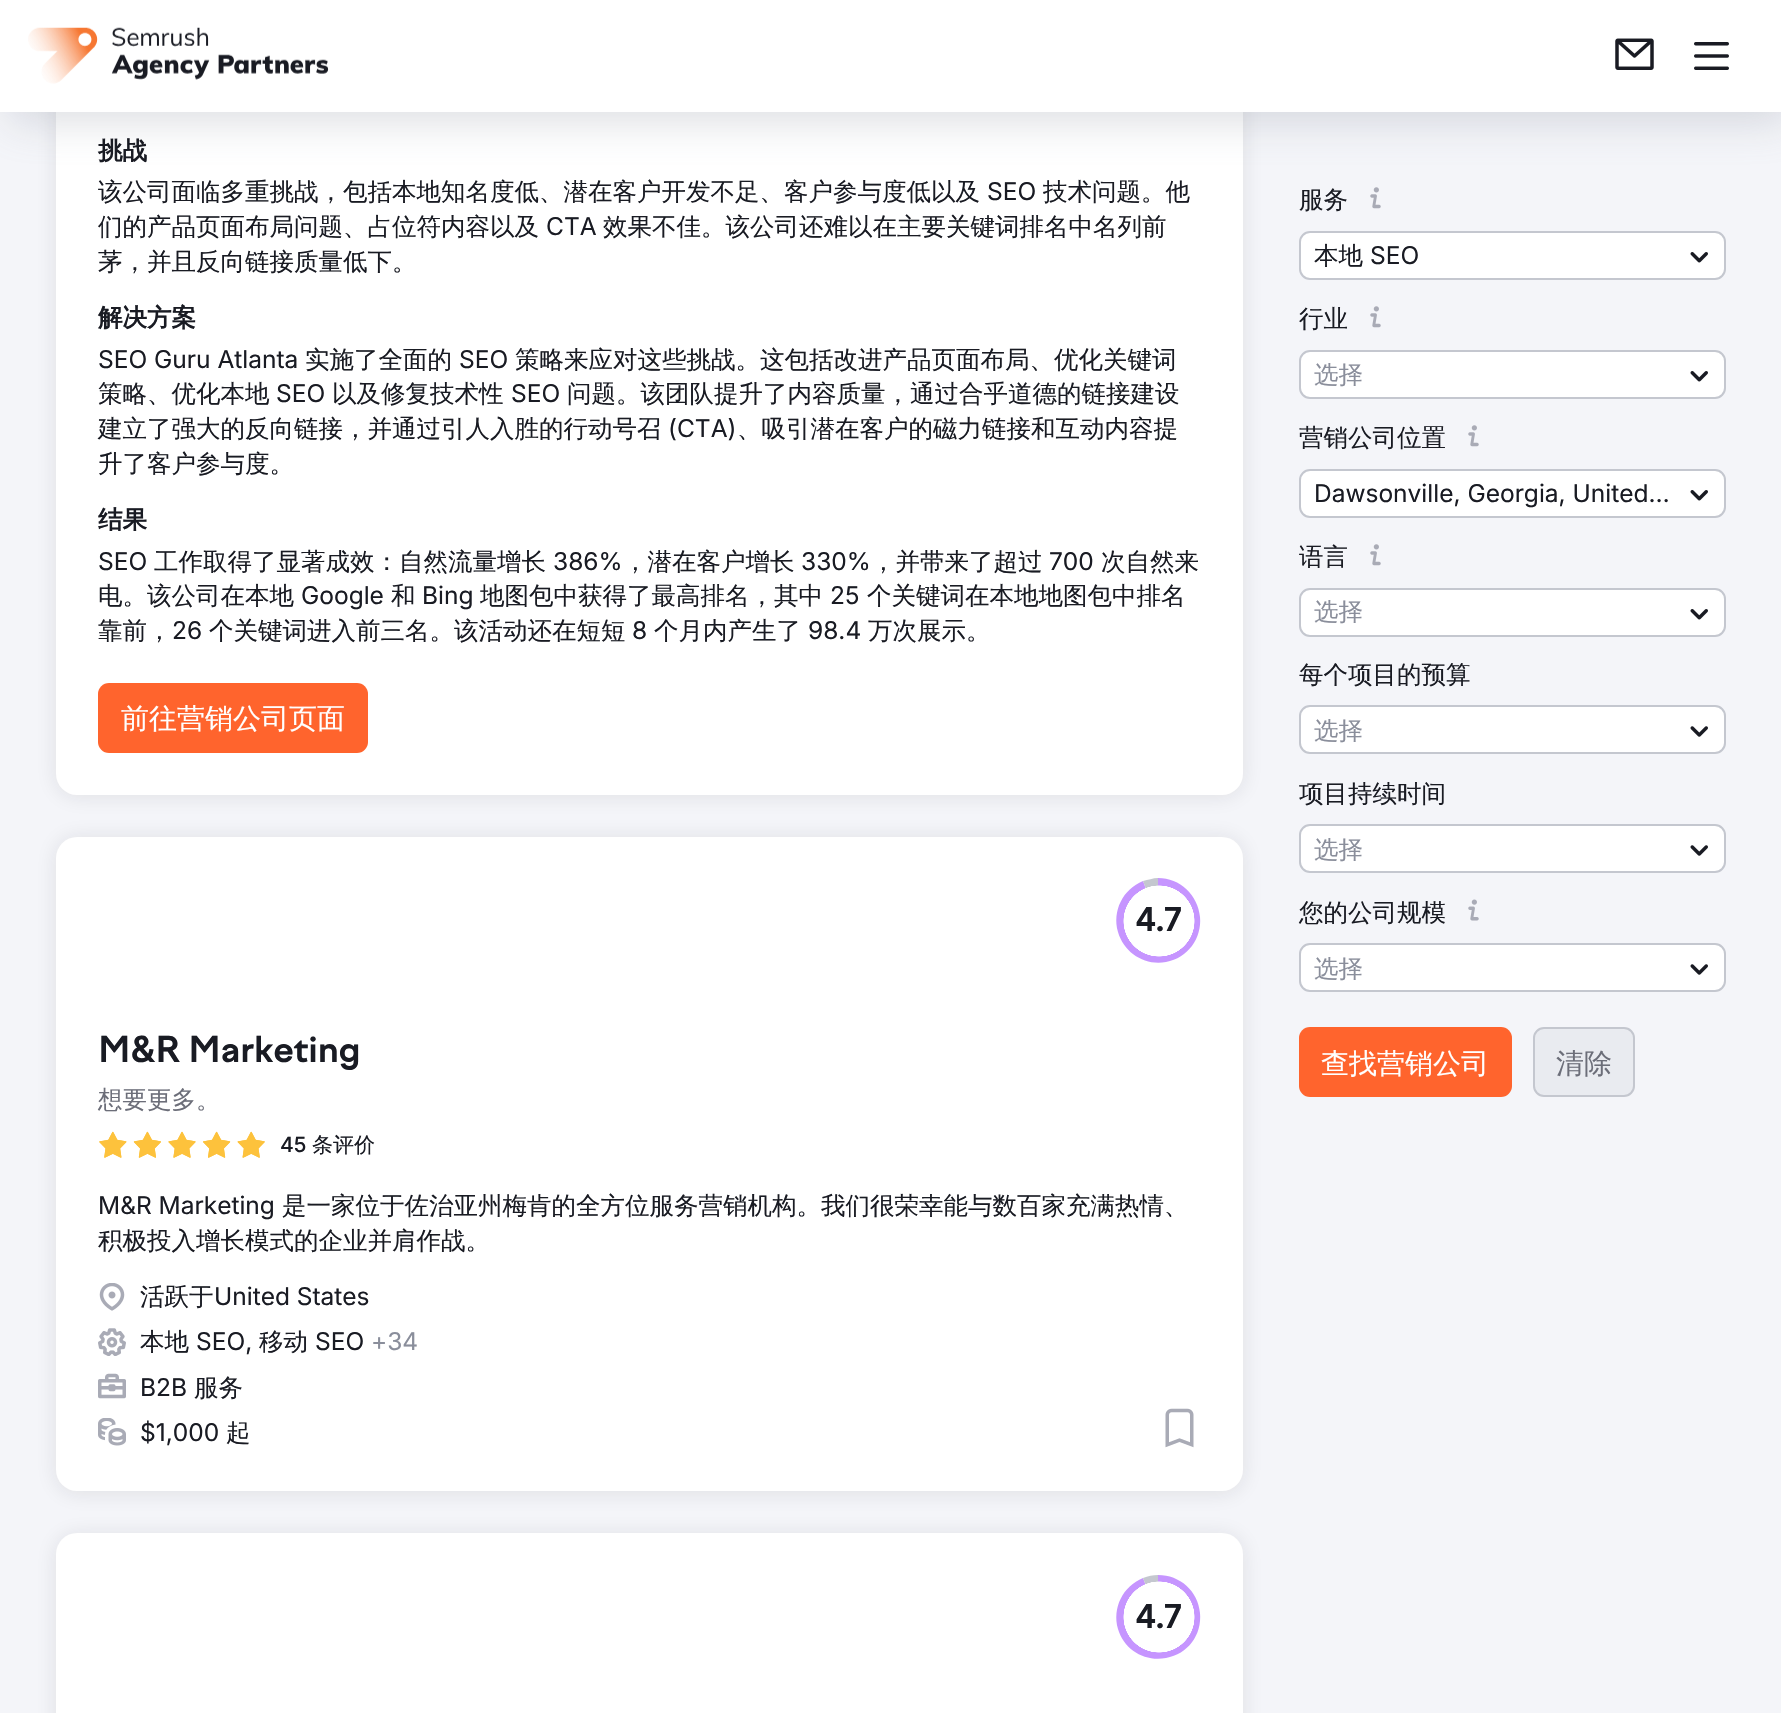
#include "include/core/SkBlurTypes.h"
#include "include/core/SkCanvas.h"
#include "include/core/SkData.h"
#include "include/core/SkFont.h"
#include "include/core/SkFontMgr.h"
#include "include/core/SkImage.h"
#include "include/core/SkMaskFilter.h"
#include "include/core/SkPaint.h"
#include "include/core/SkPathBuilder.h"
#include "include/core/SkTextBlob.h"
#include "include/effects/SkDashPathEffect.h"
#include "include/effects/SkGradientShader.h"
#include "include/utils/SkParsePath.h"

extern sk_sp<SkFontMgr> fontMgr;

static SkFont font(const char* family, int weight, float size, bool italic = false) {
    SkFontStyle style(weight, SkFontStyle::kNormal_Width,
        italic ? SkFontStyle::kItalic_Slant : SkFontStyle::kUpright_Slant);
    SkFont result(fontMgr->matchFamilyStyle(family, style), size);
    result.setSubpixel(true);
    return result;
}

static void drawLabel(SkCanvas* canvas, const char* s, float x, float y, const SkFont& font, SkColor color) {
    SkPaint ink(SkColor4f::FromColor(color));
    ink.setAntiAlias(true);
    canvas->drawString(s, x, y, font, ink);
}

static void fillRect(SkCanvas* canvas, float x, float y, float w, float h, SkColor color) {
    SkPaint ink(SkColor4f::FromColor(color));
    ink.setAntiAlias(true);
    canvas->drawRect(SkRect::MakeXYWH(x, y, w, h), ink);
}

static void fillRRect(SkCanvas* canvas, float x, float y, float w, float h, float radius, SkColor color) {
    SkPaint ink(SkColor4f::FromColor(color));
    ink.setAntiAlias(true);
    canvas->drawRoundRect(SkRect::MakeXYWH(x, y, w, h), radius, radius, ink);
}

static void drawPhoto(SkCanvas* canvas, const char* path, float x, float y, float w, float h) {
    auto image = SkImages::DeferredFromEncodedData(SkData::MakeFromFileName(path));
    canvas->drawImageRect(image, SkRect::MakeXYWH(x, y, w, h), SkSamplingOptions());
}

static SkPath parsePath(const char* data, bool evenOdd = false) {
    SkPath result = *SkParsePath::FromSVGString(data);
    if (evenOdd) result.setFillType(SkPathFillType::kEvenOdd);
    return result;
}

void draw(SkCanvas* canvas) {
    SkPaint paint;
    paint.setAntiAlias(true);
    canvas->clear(0xFFF4F5F9);
    paint.setColor(0x1A191B23);
    paint.setMaskFilter(SkMaskFilter::MakeBlur(kNormal_SkBlurStyle, 10.5f));
    canvas->drawRoundRect(SkRect::MakeXYWH(56, -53, 1187, 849), 21, 21, paint);
    paint.setMaskFilter(nullptr);
    fillRRect(canvas, 56, -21, 1187, 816, 21, 0xFFFFFFFF);
    drawPhoto(canvas, "assets/img10.png", 1370, 187, 11, 22);
    paint.setColor(0x4D898D9A);
    paint.setMaskFilter(SkMaskFilter::MakeBlur(kNormal_SkBlurStyle, 22));
    canvas->drawRect(SkRect::MakeXYWH(9, 9, 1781, 112), paint);
    paint.setMaskFilter(nullptr);
    fillRect(canvas, 0, 0, 1781, 112, 0xFFFFFFFF);
    drawPhoto(canvas, "assets/img1.png", 28, 27, 301, 57);
    drawPhoto(canvas, "assets/img2.png", 1615, 38, 39, 32);
    drawPhoto(canvas, "assets/img3.png", 1694, 42, 35, 28);
    SkFont font1 = font("WenQuanYi Zen Hei", 700, 24.5f);
    drawLabel(canvas, "挑战", 98, 159, font1, 0xFF191B23);
    SkFont font2 = font("WenQuanYi Zen Hei", 500, 24.5f);
    drawLabel(canvas, "该公司面临多重挑战，包括本地知名度低、潜在客户开发不足、客户参与度低以及", 98, 200, font2, 0xFF191B23);
    SkFont font3 = font("Inter", 400, 24.5f);
    drawLabel(canvas, "SEO", 987, 200, font3, 0xFF191B23);
    drawLabel(canvas, "技术问题。他", 1043, 200, font2, 0xFF191B23);
    drawLabel(canvas, "们的产品页面布局问题、占位符内容以及", 98, 235, font2, 0xFF191B23);
    drawLabel(canvas, "CTA", 546, 235, font3, 0xFF191B23);
    drawLabel(canvas, "效果不佳。该公司还难以在主要关键词排名中名列前", 603, 235, font2, 0xFF191B23);
    drawLabel(canvas, "茅，并且反向链接质量低下。", 98, 270, font2, 0xFF191B23);
    drawLabel(canvas, "解决方案", 98, 326, font1, 0xFF191B23);
    drawLabel(canvas, "SEO Guru Atlanta", 98, 368, font3, 0xFF191B23);
    drawLabel(canvas, "实施了全面的", 305, 368, font2, 0xFF191B23);
    drawLabel(canvas, "SEO", 459, 368, font3, 0xFF191B23);
    drawLabel(canvas, "策略来应对这些挑战。这包括改进产品页面布局、优化关键词", 515, 368, font2, 0xFF191B23);
    drawLabel(canvas, "策略、优化本地", 98, 402, font2, 0xFF191B23);
    drawLabel(canvas, "SEO", 276, 402, font3, 0xFF191B23);
    drawLabel(canvas, "以及修复技术性", 332, 402, font2, 0xFF191B23);
    drawLabel(canvas, "SEO", 511, 402, font3, 0xFF191B23);
    drawLabel(canvas, "问题。该团队提升了内容质量，通过合乎道德的链接建设", 567, 402, font2, 0xFF191B23);
    drawLabel(canvas, "建立了强大的反向链接，并通过引人入胜的行动号召", 98, 437, font2, 0xFF191B23);
    drawLabel(canvas, "(CTA)", 668, 437, font3, 0xFF191B23);
    drawLabel(canvas, "、吸引潜在客户的磁力链接和互动内容提", 737, 437, font2, 0xFF191B23);
    drawLabel(canvas, "升了客户参与度。", 98, 472, font2, 0xFF191B23);
    drawLabel(canvas, "结果", 98, 528, font1, 0xFF191B23);
    drawLabel(canvas, "SEO", 98, 570, font3, 0xFF191B23);
    drawLabel(canvas, "工作取得了显著成效：自然流量增长", 154, 570, font2, 0xFF191B23);
    drawLabel(canvas, "386%", 553, 570, font3, 0xFF191B23);
    drawLabel(canvas, "，潜在客户增长", 623, 570, font2, 0xFF191B23);
    drawLabel(canvas, "330%", 801, 570, font3, 0xFF191B23);
    drawLabel(canvas, "，并带来了超过", 871, 570, font2, 0xFF191B23);
    drawLabel(canvas, "700", 1049, 570, font3, 0xFF191B23);
    drawLabel(canvas, "次自然来", 1101, 570, font2, 0xFF191B23);
    drawLabel(canvas, "电。该公司在本地", 98, 604, font2, 0xFF191B23);
    drawLabel(canvas, "Google", 301, 604, font3, 0xFF191B23);
    drawLabel(canvas, "和", 391, 604, font2, 0xFF191B23);
    drawLabel(canvas, "Bing", 422, 604, font3, 0xFF191B23);
    drawLabel(canvas, "地图包中获得了最高排名，其中", 480, 604, font2, 0xFF191B23);
    drawLabel(canvas, "25", 830, 604, font3, 0xFF191B23);
    drawLabel(canvas, "个关键词在本地地图包中排名", 867, 604, font2, 0xFF191B23);
    drawLabel(canvas, "靠前，", 98, 639, font2, 0xFF191B23);
    drawLabel(canvas, "26", 172, 639, font3, 0xFF191B23);
    drawLabel(canvas, "个关键词进入前三名。该活动还在短短", 209, 639, font2, 0xFF191B23);
    drawLabel(canvas, "8", 632, 639, font3, 0xFF191B23);
    drawLabel(canvas, "个月内产生了", 654, 639, font2, 0xFF191B23);
    drawLabel(canvas, "98.4", 808, 639, font3, 0xFF191B23);
    drawLabel(canvas, "万次展示。", 868, 639, font2, 0xFF191B23);
    fillRRect(canvas, 98, 683, 270, 70, 11, 0xFFFF642D);
    SkFont font4 = font("WenQuanYi Zen Hei", 500, 28);
    drawLabel(canvas, "前往营销公司页面", 121, 728, font4, 0xFFFFFFFF);
    paint.setColor(0x1A191B23);
    paint.setMaskFilter(SkMaskFilter::MakeBlur(kNormal_SkBlurStyle, 10.5f));
    canvas->drawRoundRect(SkRect::MakeXYWH(56, 838, 1187, 655), 21, 21, paint);
    paint.setMaskFilter(nullptr);
    fillRRect(canvas, 56, 837, 1187, 654, 21, 0xFFFFFFFF);
    paint.setColor(0xFFC695FF);
    canvas->drawPath(parsePath("M1158 920V878C1180 878 1198 895 1200 917C1202 938 1188 958 1166 962C1145 966 1124 953 1118 932C1112 911 1123 889 1143 881Z"), paint);
    paint.setColor(0xFFC4C7CF);
    canvas->drawPath(parsePath("M1158 920L1143 881C1148 880 1153 878 1158 878Z"), paint);
    {
        const SkColor colors[] = {0xFFFFFFFF, 0x00FFFFFF, 0x00000000};
        const float stops[] = {0.84f, 0.85f, 1};
        paint.setShader(SkGradientShader::MakeRadial({1159, 921}, 42, colors, stops, 3, SkTileMode::kClamp));
        paint.setAlpha(255);
    }
    canvas->drawRect(SkRect::MakeXYWH(1123, 885, 72, 72), paint);
    SkFont font5 = font("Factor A", 700, 32);
    drawLabel(canvas, "4.7", 1136, 931, font5, 0xFF191B23);
    SkFont font6 = font("Factor A", 700, 35);
    drawLabel(canvas, "M&R Marketing", 98, 1062, font6, 0xFF191B23);
    drawLabel(canvas, "想要更多。", 98, 1108, font2, 0xFF6C6E79);
    drawPhoto(canvas, "assets/img4.png", 99, 1131, 166, 27);
    SkFont font7 = font("Inter", 500, 21);
    drawLabel(canvas, "45", 280, 1152, font7, 0xFF191B23);
    SkFont font8 = font("WenQuanYi Zen Hei", 500, 21);
    drawLabel(canvas, "条评价", 312, 1152, font8, 0xFF191B23);
    drawLabel(canvas, "M&R Marketing", 98, 1214, font3, 0xFF191B23);
    drawLabel(canvas, "是一家位于佐治亚州梅肯的全方位服务营销机构。我们很荣幸能与数百家充满热情、", 282, 1214, font2, 0xFF191B23);
    drawLabel(canvas, "积极投入增长模式的企业并肩作战。", 98, 1249, font2, 0xFF191B23);
    drawPhoto(canvas, "assets/img5.png", 99, 1283, 26, 28);
    drawLabel(canvas, "活跃于", 140, 1305, font2, 0xFF191B23);
    drawLabel(canvas, "United States", 214, 1305, font3, 0xFF191B23);
    drawPhoto(canvas, "assets/img6.png", 98, 1328, 28, 28);
    drawLabel(canvas, "本地", 140, 1350, font2, 0xFF191B23);
    drawLabel(canvas, "SEO,", 196, 1350, font3, 0xFF191B23);
    drawLabel(canvas, "移动", 259, 1350, font2, 0xFF191B23);
    drawLabel(canvas, "SEO", 315, 1350, font3, 0xFF191B23);
    drawLabel(canvas, "+34", 371, 1350, font3, 0xFF8A8E9B);
    drawPhoto(canvas, "assets/img7.png", 98, 1373, 28, 26);
    drawLabel(canvas, "B2B", 140, 1396, font3, 0xFF191B23);
    drawLabel(canvas, "服务", 194, 1396, font2, 0xFF191B23);
    drawPhoto(canvas, "assets/img8.png", 98, 1418, 28, 28);
    drawLabel(canvas, "$1,000", 140, 1441, font3, 0xFF191B23);
    drawLabel(canvas, "起", 226, 1441, font2, 0xFF191B23);
    drawPhoto(canvas, "assets/img9.png", 1165, 1408, 29, 40);
    paint.setShader(nullptr);
    paint.setColor(0x1A191B23);
    paint.setMaskFilter(SkMaskFilter::MakeBlur(kNormal_SkBlurStyle, 10.5f));
    canvas->drawRoundRect(SkRect::MakeXYWH(56, 1535, 1187, 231), 21, 21, paint);
    paint.setMaskFilter(nullptr);
    fillRRect(canvas, 56, 1533, 1187, 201, 21, 0xFFFFFFFF);
    paint.setColor(0xFFC695FF);
    canvas->drawPath(parsePath("M1158 1617V1575C1180 1575 1198 1591 1200 1613C1202 1635 1188 1654 1166 1658C1145 1662 1124 1650 1118 1629C1112 1608 1123 1586 1143 1578Z"), paint);
    paint.setColor(0xFFC4C7CF);
    canvas->drawPath(parsePath("M1158 1617L1143 1578C1148 1576 1153 1575 1158 1575Z"), paint);
    {
        const SkColor colors[] = {0xFFFFFFFF, 0x00FFFFFF, 0x00000000};
        const float stops[] = {0.84f, 0.85f, 1};
        paint.setShader(SkGradientShader::MakeRadial({1159, 1617}, 42, colors, stops, 3, SkTileMode::kClamp));
        paint.setAlpha(255);
    }
    canvas->drawRect(SkRect::MakeXYWH(1123, 1581, 72, 72), paint);
    drawLabel(canvas, "4.7", 1136, 1628, font5, 0xFF191B23);
    drawLabel(canvas, "服务", 1299, 208, font2, 0xFF191B23);
    paint.setShader(nullptr);
    paint.setColor(0xFFFFFFFF);
    canvas->drawRoundRect(SkRect::MakeXYWH(1300, 232, 425, 47), 10, 10, paint);
    paint.setStroke(true);
    paint.setStrokeWidth(2);
    paint.setColor(0xFFC4C7CF);
    canvas->drawRoundRect(SkRect::MakeXYWH(1300, 232, 425, 47), 10, 10, paint);
    drawLabel(canvas, "本地", 1314, 264, font2, 0xFF191B23);
    drawLabel(canvas, "SEO", 1370, 264, font3, 0xFF191B23);
    drawPhoto(canvas, "assets/img11.png", 1690, 252, 18, 11);
    drawLabel(canvas, "行业", 1299, 327, font2, 0xFF191B23);
    drawPhoto(canvas, "assets/img10.png", 1370, 306, 11, 22);
    paint.setStroke(false);
    paint.setColor(0xFFFFFFFF);
    canvas->drawRoundRect(SkRect::MakeXYWH(1300, 351, 425, 47), 10, 10, paint);
    paint.setStroke(true);
    paint.setColor(0xFFC4C7CF);
    canvas->drawRoundRect(SkRect::MakeXYWH(1300, 351, 425, 47), 10, 10, paint);
    drawLabel(canvas, "选择", 1314, 383, font2, 0xFF8A8E9B);
    drawPhoto(canvas, "assets/img11.png", 1690, 371, 18, 11);
    drawLabel(canvas, "营销公司位置", 1299, 446, font2, 0xFF191B23);
    drawPhoto(canvas, "assets/img10.png", 1468, 425, 11, 22);
    paint.setStroke(false);
    paint.setColor(0xFFFFFFFF);
    canvas->drawRoundRect(SkRect::MakeXYWH(1300, 470, 425, 47), 10, 10, paint);
    paint.setStroke(true);
    paint.setColor(0xFFC4C7CF);
    canvas->drawRoundRect(SkRect::MakeXYWH(1300, 470, 425, 47), 10, 10, paint);
    drawLabel(canvas, "Dawsonville, Georgia, United…", 1314, 502, font3, 0xFF191B23);
    drawPhoto(canvas, "assets/img11.png", 1690, 490, 18, 11);
    drawLabel(canvas, "语言", 1299, 565, font2, 0xFF191B23);
    drawPhoto(canvas, "assets/img10.png", 1370, 544, 11, 22);
    paint.setStroke(false);
    paint.setColor(0xFFFFFFFF);
    canvas->drawRoundRect(SkRect::MakeXYWH(1300, 589, 425, 47), 10, 10, paint);
    paint.setStroke(true);
    paint.setColor(0xFFC4C7CF);
    canvas->drawRoundRect(SkRect::MakeXYWH(1300, 589, 425, 47), 10, 10, paint);
    drawLabel(canvas, "选择", 1314, 620, font2, 0xFF8A8E9B);
    drawPhoto(canvas, "assets/img11.png", 1690, 609, 18, 11);
    drawLabel(canvas, "每个项目的预算", 1299, 683, font2, 0xFF191B23);
    paint.setStroke(false);
    paint.setColor(0xFFFFFFFF);
    canvas->drawRoundRect(SkRect::MakeXYWH(1300, 706, 425, 47), 10, 10, paint);
    paint.setStroke(true);
    paint.setColor(0xFFC4C7CF);
    canvas->drawRoundRect(SkRect::MakeXYWH(1300, 706, 425, 47), 10, 10, paint);
    drawLabel(canvas, "选择", 1314, 739, font2, 0xFF8A8E9B);
    drawPhoto(canvas, "assets/img12.png", 1690, 726, 18, 11);
    drawLabel(canvas, "项目持续时间", 1299, 802, font2, 0xFF191B23);
    paint.setStroke(false);
    paint.setColor(0xFFFFFFFF);
    canvas->drawRoundRect(SkRect::MakeXYWH(1300, 825, 425, 47), 10, 10, paint);
    paint.setStroke(true);
    paint.setColor(0xFFC4C7CF);
    canvas->drawRoundRect(SkRect::MakeXYWH(1300, 825, 425, 47), 10, 10, paint);
    drawLabel(canvas, "选择", 1314, 858, font2, 0xFF8A8E9B);
    drawPhoto(canvas, "assets/img12.png", 1690, 845, 18, 11);
    drawLabel(canvas, "您的公司规模", 1299, 921, font2, 0xFF191B23);
    drawPhoto(canvas, "assets/img13.png", 1468, 899, 11, 22);
    paint.setStroke(false);
    paint.setColor(0xFFFFFFFF);
    canvas->drawRoundRect(SkRect::MakeXYWH(1300, 944, 425, 47), 10, 10, paint);
    paint.setStroke(true);
    paint.setColor(0xFFC4C7CF);
    canvas->drawRoundRect(SkRect::MakeXYWH(1300, 944, 425, 47), 10, 10, paint);
    drawLabel(canvas, "选择", 1314, 977, font2, 0xFF8A8E9B);
    drawPhoto(canvas, "assets/img12.png", 1690, 964, 18, 11);
    fillRRect(canvas, 1299, 1027, 213, 70, 11, 0xFFFF642D);
    drawLabel(canvas, "查找营销公司", 1321, 1073, font4, 0xFFFFFFFF);
    paint.setStroke(false);
    paint.setColor(0xFFE9EBF0);
    canvas->drawRoundRect(SkRect::MakeXYWH(1534, 1028, 100, 68), 10, 10, paint);
    paint.setStroke(true);
    paint.setColor(0xFFC4C7CF);
    canvas->drawRoundRect(SkRect::MakeXYWH(1534, 1028, 100, 68), 10, 10, paint);
    drawLabel(canvas, "清除", 1556, 1073, font4, 0xFF6C6E79);
}
